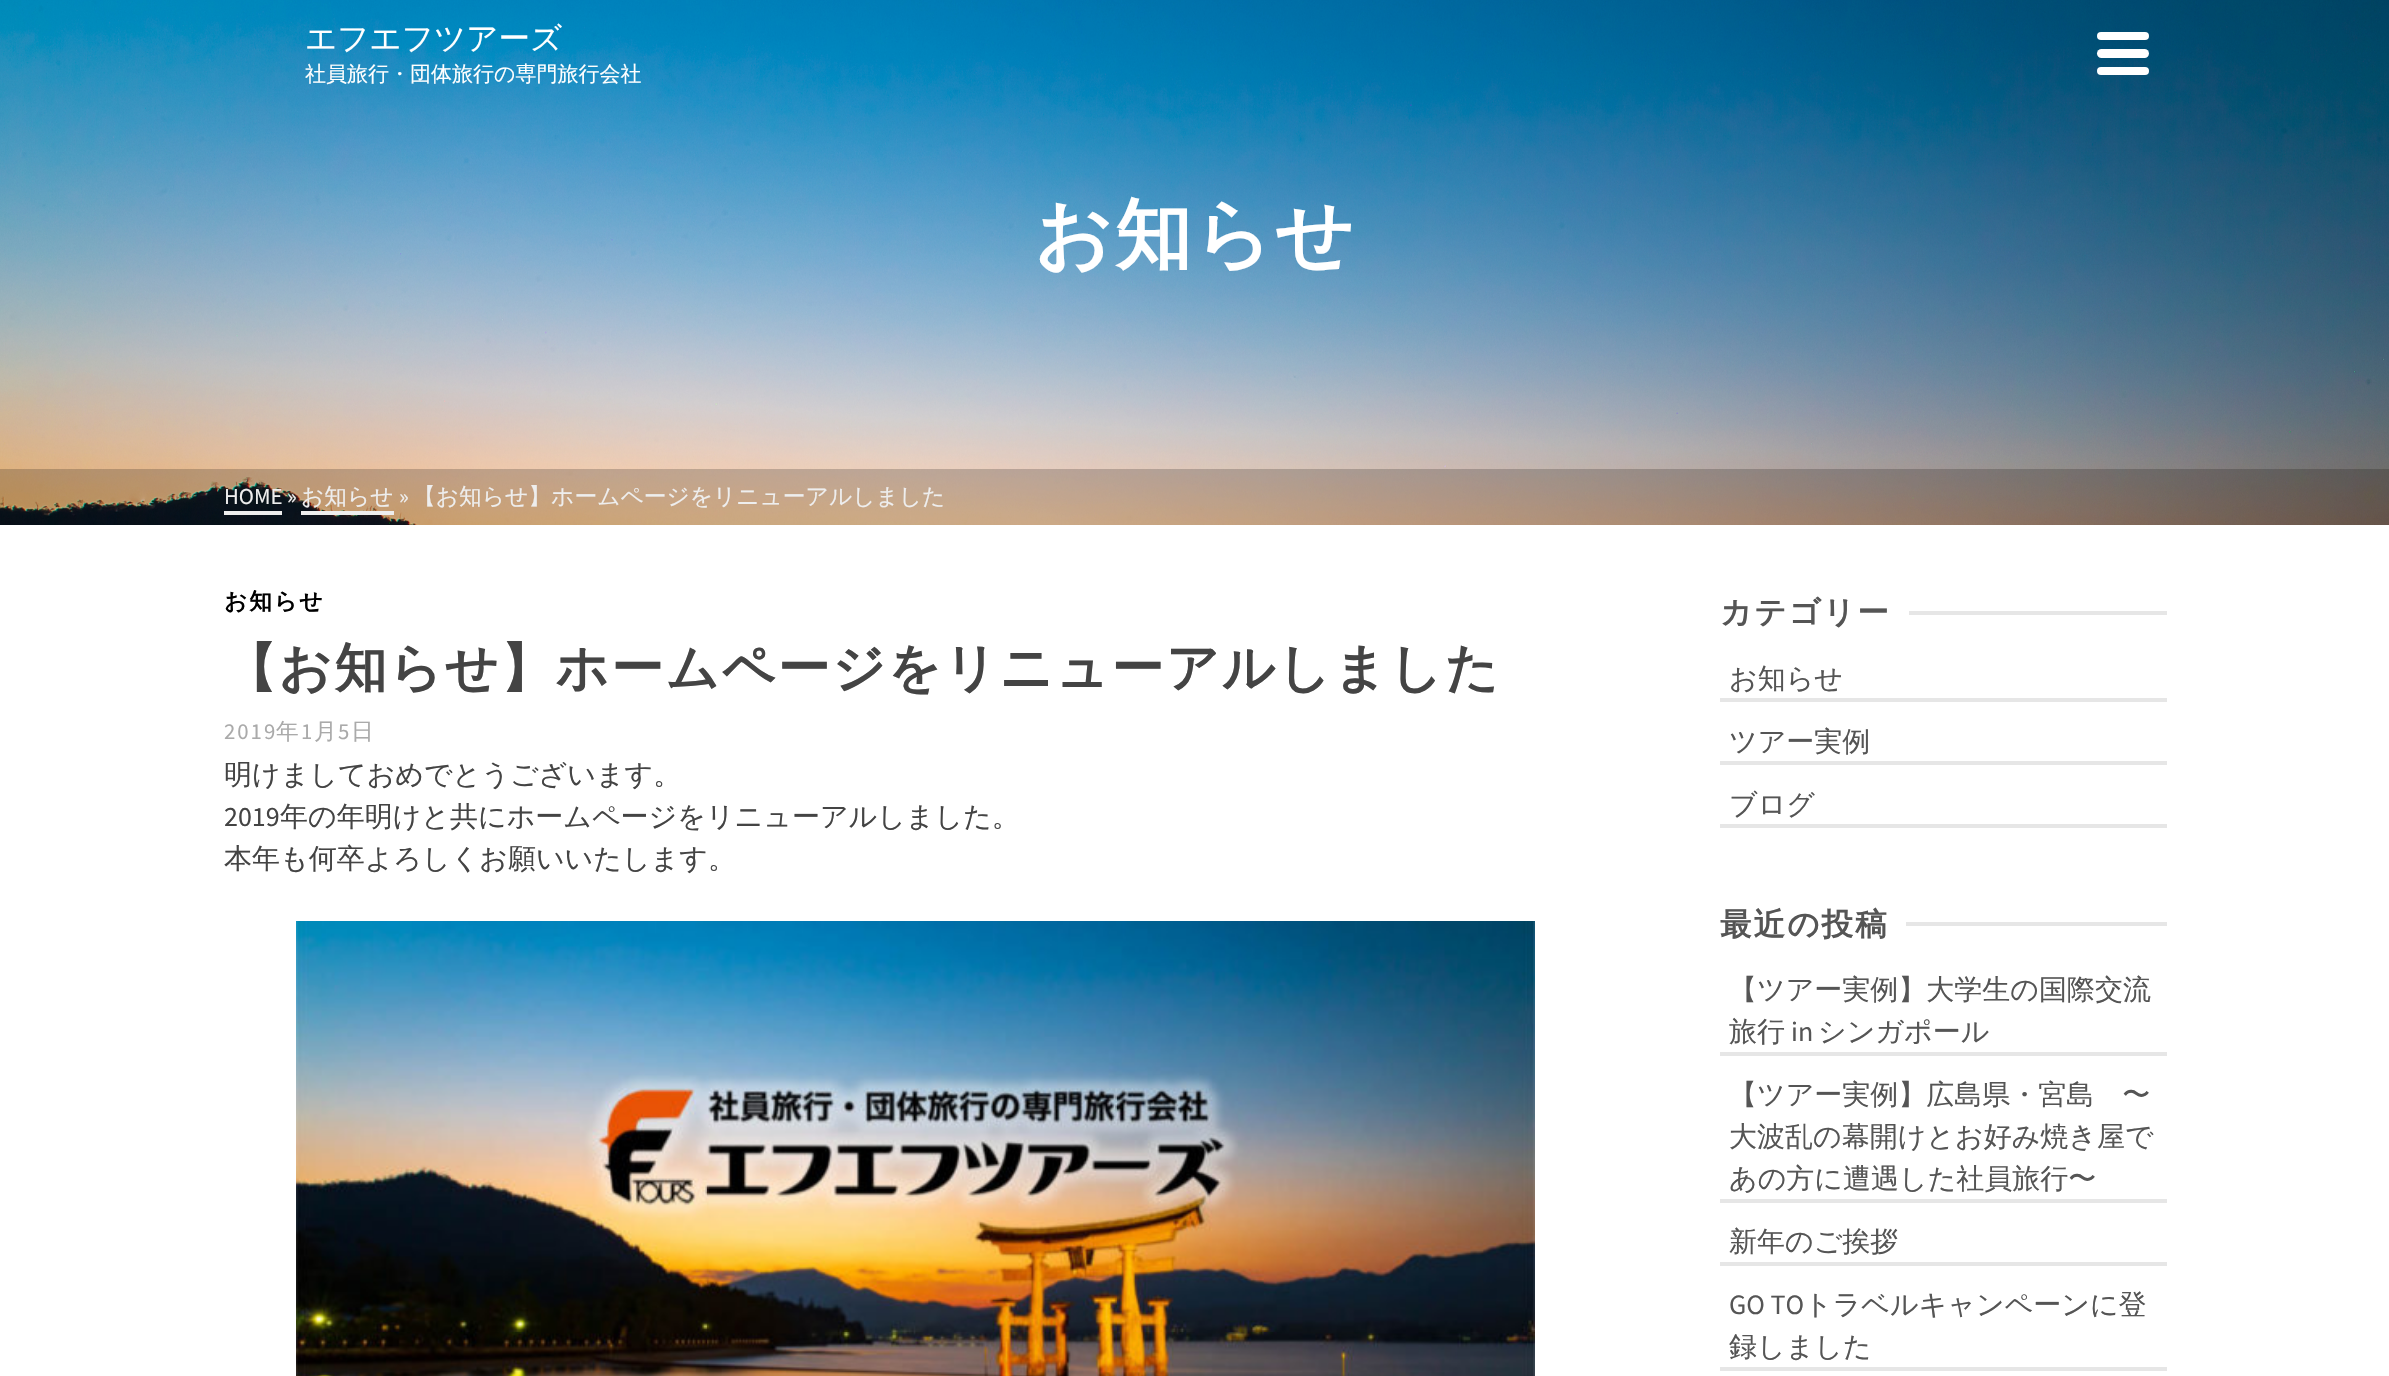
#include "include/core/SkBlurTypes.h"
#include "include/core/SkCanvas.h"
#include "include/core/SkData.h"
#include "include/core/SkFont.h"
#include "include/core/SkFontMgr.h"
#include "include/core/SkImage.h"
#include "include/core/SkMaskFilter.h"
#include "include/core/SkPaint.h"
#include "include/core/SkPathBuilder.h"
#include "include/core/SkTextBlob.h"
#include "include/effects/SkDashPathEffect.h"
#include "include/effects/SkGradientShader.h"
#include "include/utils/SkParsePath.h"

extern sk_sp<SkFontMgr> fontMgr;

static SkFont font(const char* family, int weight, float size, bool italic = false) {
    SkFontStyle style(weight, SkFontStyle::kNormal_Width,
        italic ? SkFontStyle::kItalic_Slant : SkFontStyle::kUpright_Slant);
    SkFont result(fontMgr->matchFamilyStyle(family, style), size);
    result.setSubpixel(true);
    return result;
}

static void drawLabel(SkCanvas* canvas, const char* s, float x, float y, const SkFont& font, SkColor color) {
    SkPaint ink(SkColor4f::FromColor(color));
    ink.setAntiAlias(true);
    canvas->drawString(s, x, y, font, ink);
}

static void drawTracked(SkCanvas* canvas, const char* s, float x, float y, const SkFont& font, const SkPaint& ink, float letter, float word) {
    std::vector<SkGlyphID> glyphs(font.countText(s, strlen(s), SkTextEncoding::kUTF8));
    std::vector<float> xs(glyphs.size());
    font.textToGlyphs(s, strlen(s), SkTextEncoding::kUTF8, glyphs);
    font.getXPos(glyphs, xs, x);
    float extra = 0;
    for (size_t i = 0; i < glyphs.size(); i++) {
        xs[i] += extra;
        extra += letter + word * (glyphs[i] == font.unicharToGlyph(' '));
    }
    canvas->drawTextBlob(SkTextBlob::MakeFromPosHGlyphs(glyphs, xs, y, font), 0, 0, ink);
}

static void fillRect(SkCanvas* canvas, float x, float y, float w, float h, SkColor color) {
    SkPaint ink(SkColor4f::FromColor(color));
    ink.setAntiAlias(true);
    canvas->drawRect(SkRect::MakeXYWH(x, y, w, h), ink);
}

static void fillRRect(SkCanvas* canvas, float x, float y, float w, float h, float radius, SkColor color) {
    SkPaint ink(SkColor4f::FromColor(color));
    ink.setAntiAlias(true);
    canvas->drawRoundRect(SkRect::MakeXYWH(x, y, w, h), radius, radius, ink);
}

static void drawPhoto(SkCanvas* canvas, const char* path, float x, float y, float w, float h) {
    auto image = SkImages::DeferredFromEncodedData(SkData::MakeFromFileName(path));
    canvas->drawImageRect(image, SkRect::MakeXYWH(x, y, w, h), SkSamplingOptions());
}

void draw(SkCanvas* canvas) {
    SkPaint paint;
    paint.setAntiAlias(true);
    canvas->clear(0xFFFFFFFF);
    drawPhoto(canvas, "assets/img1.png", 0, 0, 2389, 525);
    SkFont font1 = font("WenQuanYi Zen Hei", 500, 31.5f);
    drawLabel(canvas, "エフエフツアーズ", 305, 49, font1, 0xFFFFFFFF);
    SkFont font2 = font("WenQuanYi Zen Hei", 500, 21);
    drawLabel(canvas, "社員旅行・団体旅行の専門旅行会社", 305, 81, font2, 0xFFFFFFFF);
    fillRRect(canvas, 2097, 32, 52, 8, 4, 0xFFFFFFFF);
    fillRRect(canvas, 2097, 49, 52, 9, 4.5f, 0xFFFFFFFF);
    fillRRect(canvas, 2097, 67, 52, 8, 4, 0xFFFFFFFF);
    SkFont font3 = font("WenQuanYi Zen Hei", 700, 77);
    paint.setColor(0xFFFFFFFF);
    drawTracked(canvas, "お知らせ", 1034, 261, font3, paint, 2.1f, 0);
    fillRect(canvas, 0, 469, 2389, 56, 0x33000000);
    SkFont font4 = font("Source Sans Pro", 400, 22.75f);
    drawLabel(canvas, "HOME »", 224, 504, font4, 0xFFEEEEEE);
    fillRect(canvas, 224, 511, 58, 4, 0xFFEEEEEE);
    SkFont font5 = font("WenQuanYi Zen Hei", 500, 22.75f);
    drawLabel(canvas, "お知らせ", 301, 504, font5, 0xFFEEEEEE);
    fillRect(canvas, 301, 511, 93, 4, 0xFFEEEEEE);
    drawLabel(canvas, "»", 399, 504, font4, 0xFFEEEEEE);
    drawLabel(canvas, "【お知らせ】ホームページをリニューアルしました", 413, 504, font5, 0xFFEEEEEE);
    SkFont font6 = font("WenQuanYi Zen Hei", 700, 22.75f);
    paint.setColor(0xFF000000);
    drawTracked(canvas, "お知らせ", 224, 609, font6, paint, 2, 0);
    SkFont font7 = font("WenQuanYi Zen Hei", 700, 52.5f);
    paint.setColor(0xFF444444);
    drawTracked(canvas, "【お知らせ】ホームページをリニューアルしました", 224, 686, font7, paint, 2.1f, 0);
    paint.setColor(0xFFAAAAAA);
    drawTracked(canvas, "2019", 224, 739, font4, paint, 2, 0);
    drawTracked(canvas, "年", 276, 739, font5, paint, 2, 0);
    drawTracked(canvas, "1", 301, 739, font4, paint, 2, 0);
    drawTracked(canvas, "月", 314, 739, font5, paint, 2, 0);
    drawTracked(canvas, "5", 338, 739, font4, paint, 2, 0);
    drawTracked(canvas, "日", 351, 739, font5, paint, 2, 0);
    SkFont font8 = font("WenQuanYi Zen Hei", 500, 28);
    drawLabel(canvas, "明けましておめでとうございます。", 224, 784, font8, 0xFF444444);
    SkFont font9 = font("Source Sans Pro", 400, 28);
    drawLabel(canvas, "2019", 224, 826, font9, 0xFF444444);
    drawLabel(canvas, "年の年明けと共にホームページをリニューアルしました。", 280, 826, font8, 0xFF444444);
    drawLabel(canvas, "本年も何卒よろしくお願いいたします。", 224, 868, font8, 0xFF444444);
    drawPhoto(canvas, "assets/img2.png", 296, 921, 1239, 455);
    SkFont font10 = font("WenQuanYi Zen Hei", 700, 31.5f);
    paint.setColor(0xFF555555);
    drawTracked(canvas, "カテゴリー", 1720, 623, font10, paint, 2.1f, 0);
    fillRect(canvas, 1909, 611, 258, 4, 0xFFE6E6E6);
    fillRect(canvas, 1720, 698, 447, 4, 0xFFE6E6E6);
    drawLabel(canvas, "お知らせ", 1729, 688, font8, 0xFF555555);
    fillRect(canvas, 1720, 761, 447, 4, 0xFFE6E6E6);
    drawLabel(canvas, "ツアー実例", 1729, 751, font8, 0xFF555555);
    fillRect(canvas, 1720, 824, 447, 4, 0xFFE6E6E6);
    drawLabel(canvas, "ブログ", 1729, 814, font8, 0xFF555555);
    drawTracked(canvas, "最近の投稿", 1720, 935, font10, paint, 2.1f, 0);
    fillRect(canvas, 1906, 922, 261, 4, 0xFFE6E6E6);
    fillRect(canvas, 1720, 1052, 447, 4, 0xFFE6E6E6);
    drawLabel(canvas, "【ツアー実例】大学生の国際交流", 1729, 999, font8, 0xFF555555);
    drawLabel(canvas, "旅行", 1729, 1041, font8, 0xFF555555);
    drawLabel(canvas, "in", 1791, 1041, font9, 0xFF555555);
    drawLabel(canvas, "シンガポール", 1818, 1041, font8, 0xFF555555);
    fillRect(canvas, 1720, 1199, 447, 4, 0xFFE6E6E6);
    drawLabel(canvas, "【ツアー実例】広島県・宮島　〜", 1729, 1104, font8, 0xFF555555);
    drawLabel(canvas, "大波乱の幕開けとお好み焼き屋で", 1729, 1146, font8, 0xFF555555);
    drawLabel(canvas, "あの方に遭遇した社員旅行〜", 1729, 1188, font8, 0xFF555555);
    fillRect(canvas, 1720, 1262, 447, 4, 0xFFE6E6E6);
    drawLabel(canvas, "新年のご挨拶", 1729, 1251, font8, 0xFF555555);
    fillRect(canvas, 1720, 1367, 447, 4, 0xFFE6E6E6);
    drawLabel(canvas, "GO TO", 1729, 1314, font9, 0xFF555555);
    drawLabel(canvas, "トラベルキャンペーンに登", 1804, 1314, font8, 0xFF555555);
    drawLabel(canvas, "録しました", 1729, 1356, font8, 0xFF555555);
}
